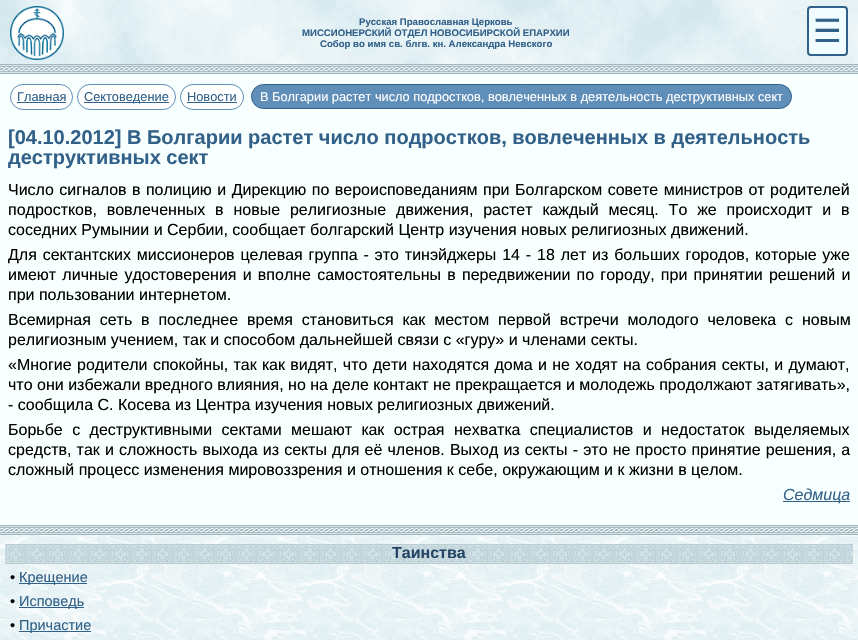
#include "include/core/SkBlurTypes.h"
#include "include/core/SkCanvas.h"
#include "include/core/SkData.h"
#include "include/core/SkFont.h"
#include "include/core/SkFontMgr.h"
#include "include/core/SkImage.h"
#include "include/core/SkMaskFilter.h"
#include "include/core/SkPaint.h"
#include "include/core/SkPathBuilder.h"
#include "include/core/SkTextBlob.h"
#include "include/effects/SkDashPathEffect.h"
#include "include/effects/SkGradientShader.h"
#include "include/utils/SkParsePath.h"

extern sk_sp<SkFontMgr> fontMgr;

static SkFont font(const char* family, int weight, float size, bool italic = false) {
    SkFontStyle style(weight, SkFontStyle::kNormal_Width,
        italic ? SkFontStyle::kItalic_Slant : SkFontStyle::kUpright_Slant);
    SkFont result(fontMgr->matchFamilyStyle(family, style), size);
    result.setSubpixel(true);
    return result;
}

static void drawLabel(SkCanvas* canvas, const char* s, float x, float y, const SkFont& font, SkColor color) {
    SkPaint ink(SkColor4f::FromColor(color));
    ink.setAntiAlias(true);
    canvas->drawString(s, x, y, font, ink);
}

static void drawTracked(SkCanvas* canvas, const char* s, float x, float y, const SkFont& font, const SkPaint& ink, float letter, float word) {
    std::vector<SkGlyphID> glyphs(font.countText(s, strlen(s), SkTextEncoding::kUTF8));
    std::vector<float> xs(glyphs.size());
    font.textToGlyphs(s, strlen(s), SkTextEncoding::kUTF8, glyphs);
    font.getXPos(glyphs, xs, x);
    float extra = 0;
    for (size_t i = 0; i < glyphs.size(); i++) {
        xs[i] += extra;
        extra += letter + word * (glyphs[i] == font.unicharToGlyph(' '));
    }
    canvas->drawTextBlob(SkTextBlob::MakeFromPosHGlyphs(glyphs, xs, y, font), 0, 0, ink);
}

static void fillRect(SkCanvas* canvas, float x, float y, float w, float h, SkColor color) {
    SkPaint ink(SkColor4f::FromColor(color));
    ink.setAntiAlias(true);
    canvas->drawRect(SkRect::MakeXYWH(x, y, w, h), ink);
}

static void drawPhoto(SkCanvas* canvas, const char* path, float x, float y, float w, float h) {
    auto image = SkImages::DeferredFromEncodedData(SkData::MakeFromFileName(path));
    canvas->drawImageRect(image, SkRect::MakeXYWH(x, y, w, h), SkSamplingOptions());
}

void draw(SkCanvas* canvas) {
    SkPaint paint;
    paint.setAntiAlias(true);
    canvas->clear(0xFFFFFFFF);
    drawPhoto(canvas, "assets/img1.png", 0, 0, 858, 74);
    drawPhoto(canvas, "assets/img2.png", 10, 6, 54, 54);
    SkFont font1 = font("Liberation Sans", 700, 9.6f);
    drawLabel(canvas, "Русская Православная Церковь", 359, 25, font1, 0xFF316088);
    drawLabel(canvas, "МИССИОНЕРСКИЙ ОТДЕЛ НОВОСИБИРСКОЙ ЕПАРХИИ", 302, 36, font1, 0xFF316088);
    drawLabel(canvas, "Собор во имя св. блгв. кн. Александра Невского", 320, 47, font1, 0xFF316088);
    paint.setColor(0xFFF0FCFF);
    canvas->drawRoundRect(SkRect::MakeXYWH(808, 7, 39, 48), 3, 3, paint);
    paint.setStroke(true);
    paint.setStrokeWidth(2);
    paint.setColor(0xFF316088);
    canvas->drawRoundRect(SkRect::MakeXYWH(808, 7, 39, 48), 3, 3, paint);
    SkFont font2 = font("DejaVu Sans", 400, 32);
    drawLabel(canvas, "☰", 813, 42, font2, 0xFF316088);
    fillRect(canvas, 0, 74, 858, 451, 0xFFF8FFFF);
    paint.setStroke(false);
    paint.setColor(0xFFFFFFFF);
    canvas->drawRoundRect(SkRect::MakeXYWH(10.5f, 84.5f, 62, 25), 12.5f, 12.5f, paint);
    paint.setStroke(true);
    paint.setStrokeWidth(1);
    paint.setColor(0xFF5F8EB8);
    canvas->drawRoundRect(SkRect::MakeXYWH(10.5f, 84.5f, 62, 25), 12.5f, 12.5f, paint);
    SkFont font3 = font("Liberation Sans", 400, 12.8f);
    drawLabel(canvas, "Главная", 17, 101, font3, 0xFF316088);
    fillRect(canvas, 17, 102, 49, 1, 0xFF316088);
    paint.setStroke(false);
    paint.setColor(0xFFFFFFFF);
    canvas->drawRoundRect(SkRect::MakeXYWH(77.5f, 84.5f, 98, 25), 12.5f, 12.5f, paint);
    paint.setStroke(true);
    paint.setColor(0xFF5F8EB8);
    canvas->drawRoundRect(SkRect::MakeXYWH(77.5f, 84.5f, 98, 25), 12.5f, 12.5f, paint);
    fillRect(canvas, 84, 102, 85, 1, 0xFF316088);
    drawLabel(canvas, "Сектоведение", 84, 101, font3, 0xFF316088);
    paint.setStroke(false);
    paint.setColor(0xFFFFFFFF);
    canvas->drawRoundRect(SkRect::MakeXYWH(180.5f, 84.5f, 63, 25), 12.5f, 12.5f, paint);
    paint.setStroke(true);
    paint.setColor(0xFF5F8EB8);
    canvas->drawRoundRect(SkRect::MakeXYWH(180.5f, 84.5f, 63, 25), 12.5f, 12.5f, paint);
    drawLabel(canvas, "Новости", 187, 101, font3, 0xFF316088);
    fillRect(canvas, 187, 102, 50, 1, 0xFF316088);
    paint.setStroke(false);
    canvas->drawRoundRect(SkRect::MakeXYWH(251.5f, 84.5f, 540, 24), 12, 12, paint);
    paint.setStroke(true);
    paint.setColor(0xFF316088);
    canvas->drawRoundRect(SkRect::MakeXYWH(251.5f, 84.5f, 540, 24), 12, 12, paint);
    drawLabel(canvas, "В Болгарии растет число подростков, вовлеченных в деятельность деструктивных сект", 260, 101, font3, 0xFFFFFFFF);
    SkFont font4 = font("Liberation Sans", 700, 20);
    drawLabel(canvas, "[04.10.2012] В Болгарии растет число подростков, вовлеченных в деятельность", 8, 144, font4, 0xFF316088);
    drawLabel(canvas, "деструктивных сект", 8, 164, font4, 0xFF316088);
    SkFont font5 = font("Liberation Sans", 400, 16);
    paint.setStroke(false);
    paint.setColor(0xFF000000);
    drawTracked(canvas, "Число сигналов в полицию и Дирекцию по вероисповеданиям при Болгарском совете министров от родителей", 8, 195, font5, paint, 0, 1);
    drawTracked(canvas, "подростков, вовлеченных в новые религиозные движения, растет каждый месяц. То же происходит и в", 8, 215, font5, paint, 0, 5.4f);
    drawLabel(canvas, "соседних Румынии и Сербии, сообщает болгарский Центр изучения новых религиозных движений.", 8, 235, font5, 0xFF000000);
    drawTracked(canvas, "Для сектантских миссионеров целевая группа - это тинэйджеры 14 - 18 лет из больших городов, которые уже", 8, 260, font5, paint, 0, 1.4f);
    drawTracked(canvas, "имеют личные удостоверения и вполне самостоятельны в передвижении по городу, при принятии решений и", 8, 280, font5, paint, 0, 1.75f);
    drawLabel(canvas, "при пользовании интернетом.", 8, 300, font5, 0xFF000000);
    drawTracked(canvas, "Всемирная сеть в последнее время становиться как местом первой встречи молодого человека с новым", 8, 325, font5, paint, 0, 4.4f);
    drawLabel(canvas, "религиозным учением, так и способом дальнейшей связи с «гуру» и членами секты.", 8, 345, font5, 0xFF000000);
    drawTracked(canvas, "«Многие родители спокойны, так как видят, что дети находятся дома и не ходят на собрания секты, и думают,", 8, 370, font5, paint, 0, 0.9f);
    drawLabel(canvas, "что они избежали вредного влияния, но на деле контакт не прекращается и молодежь продолжают затягивать»,", 8, 390, font5, 0xFF000000);
    drawLabel(canvas, "- сообщила С. Косева из Центра изучения новых религиозных движений.", 8, 410, font5, 0xFF000000);
    drawTracked(canvas, "Борьбе с деструктивными сектами мешают как острая нехватка специалистов и недостаток выделяемых", 8, 435, font5, paint, 0, 5);
    drawTracked(canvas, "средств, так и сложность выхода из секты для её членов. Выход из секты - это не просто принятие решения, а", 8, 455, font5, paint, 0, 0.7f);
    drawLabel(canvas, "сложный процесс изменения мировоззрения и отношения к себе, окружающим и к жизни в целом.", 8, 475, font5, 0xFF000000);
    fillRect(canvas, 783, 501, 67, 1, 0xFF316088);
    SkFont font6 = font("Liberation Sans", 400, 16, true);
    drawLabel(canvas, "Седмица", 783, 500, font6, 0xFF316088);
    drawPhoto(canvas, "assets/img3.png", 0, 525, 858, 115);
    drawPhoto(canvas, "assets/img4.png", 5, 544, 848, 20);
    SkFont font7 = font("Liberation Sans", 700, 16);
    drawLabel(canvas, "Таинства", 392, 558, font7, 0xFF244664);
    SkFont font8 = font("Liberation Sans", 400, 14.5f);
    drawLabel(canvas, "•", 10, 582, font8, 0xFF000000);
    fillRect(canvas, 19, 583, 68, 1, 0xFF316088);
    drawLabel(canvas, "Крещение", 19, 582, font8, 0xFF316088);
    drawLabel(canvas, "•", 10, 606, font8, 0xFF000000);
    fillRect(canvas, 19, 607, 65, 1, 0xFF316088);
    drawLabel(canvas, "Исповедь", 19, 606, font8, 0xFF316088);
    drawLabel(canvas, "•", 10, 630, font8, 0xFF000000);
    fillRect(canvas, 19, 631, 72, 1, 0xFF316088);
    drawLabel(canvas, "Причастие", 19, 630, font8, 0xFF316088);
}
